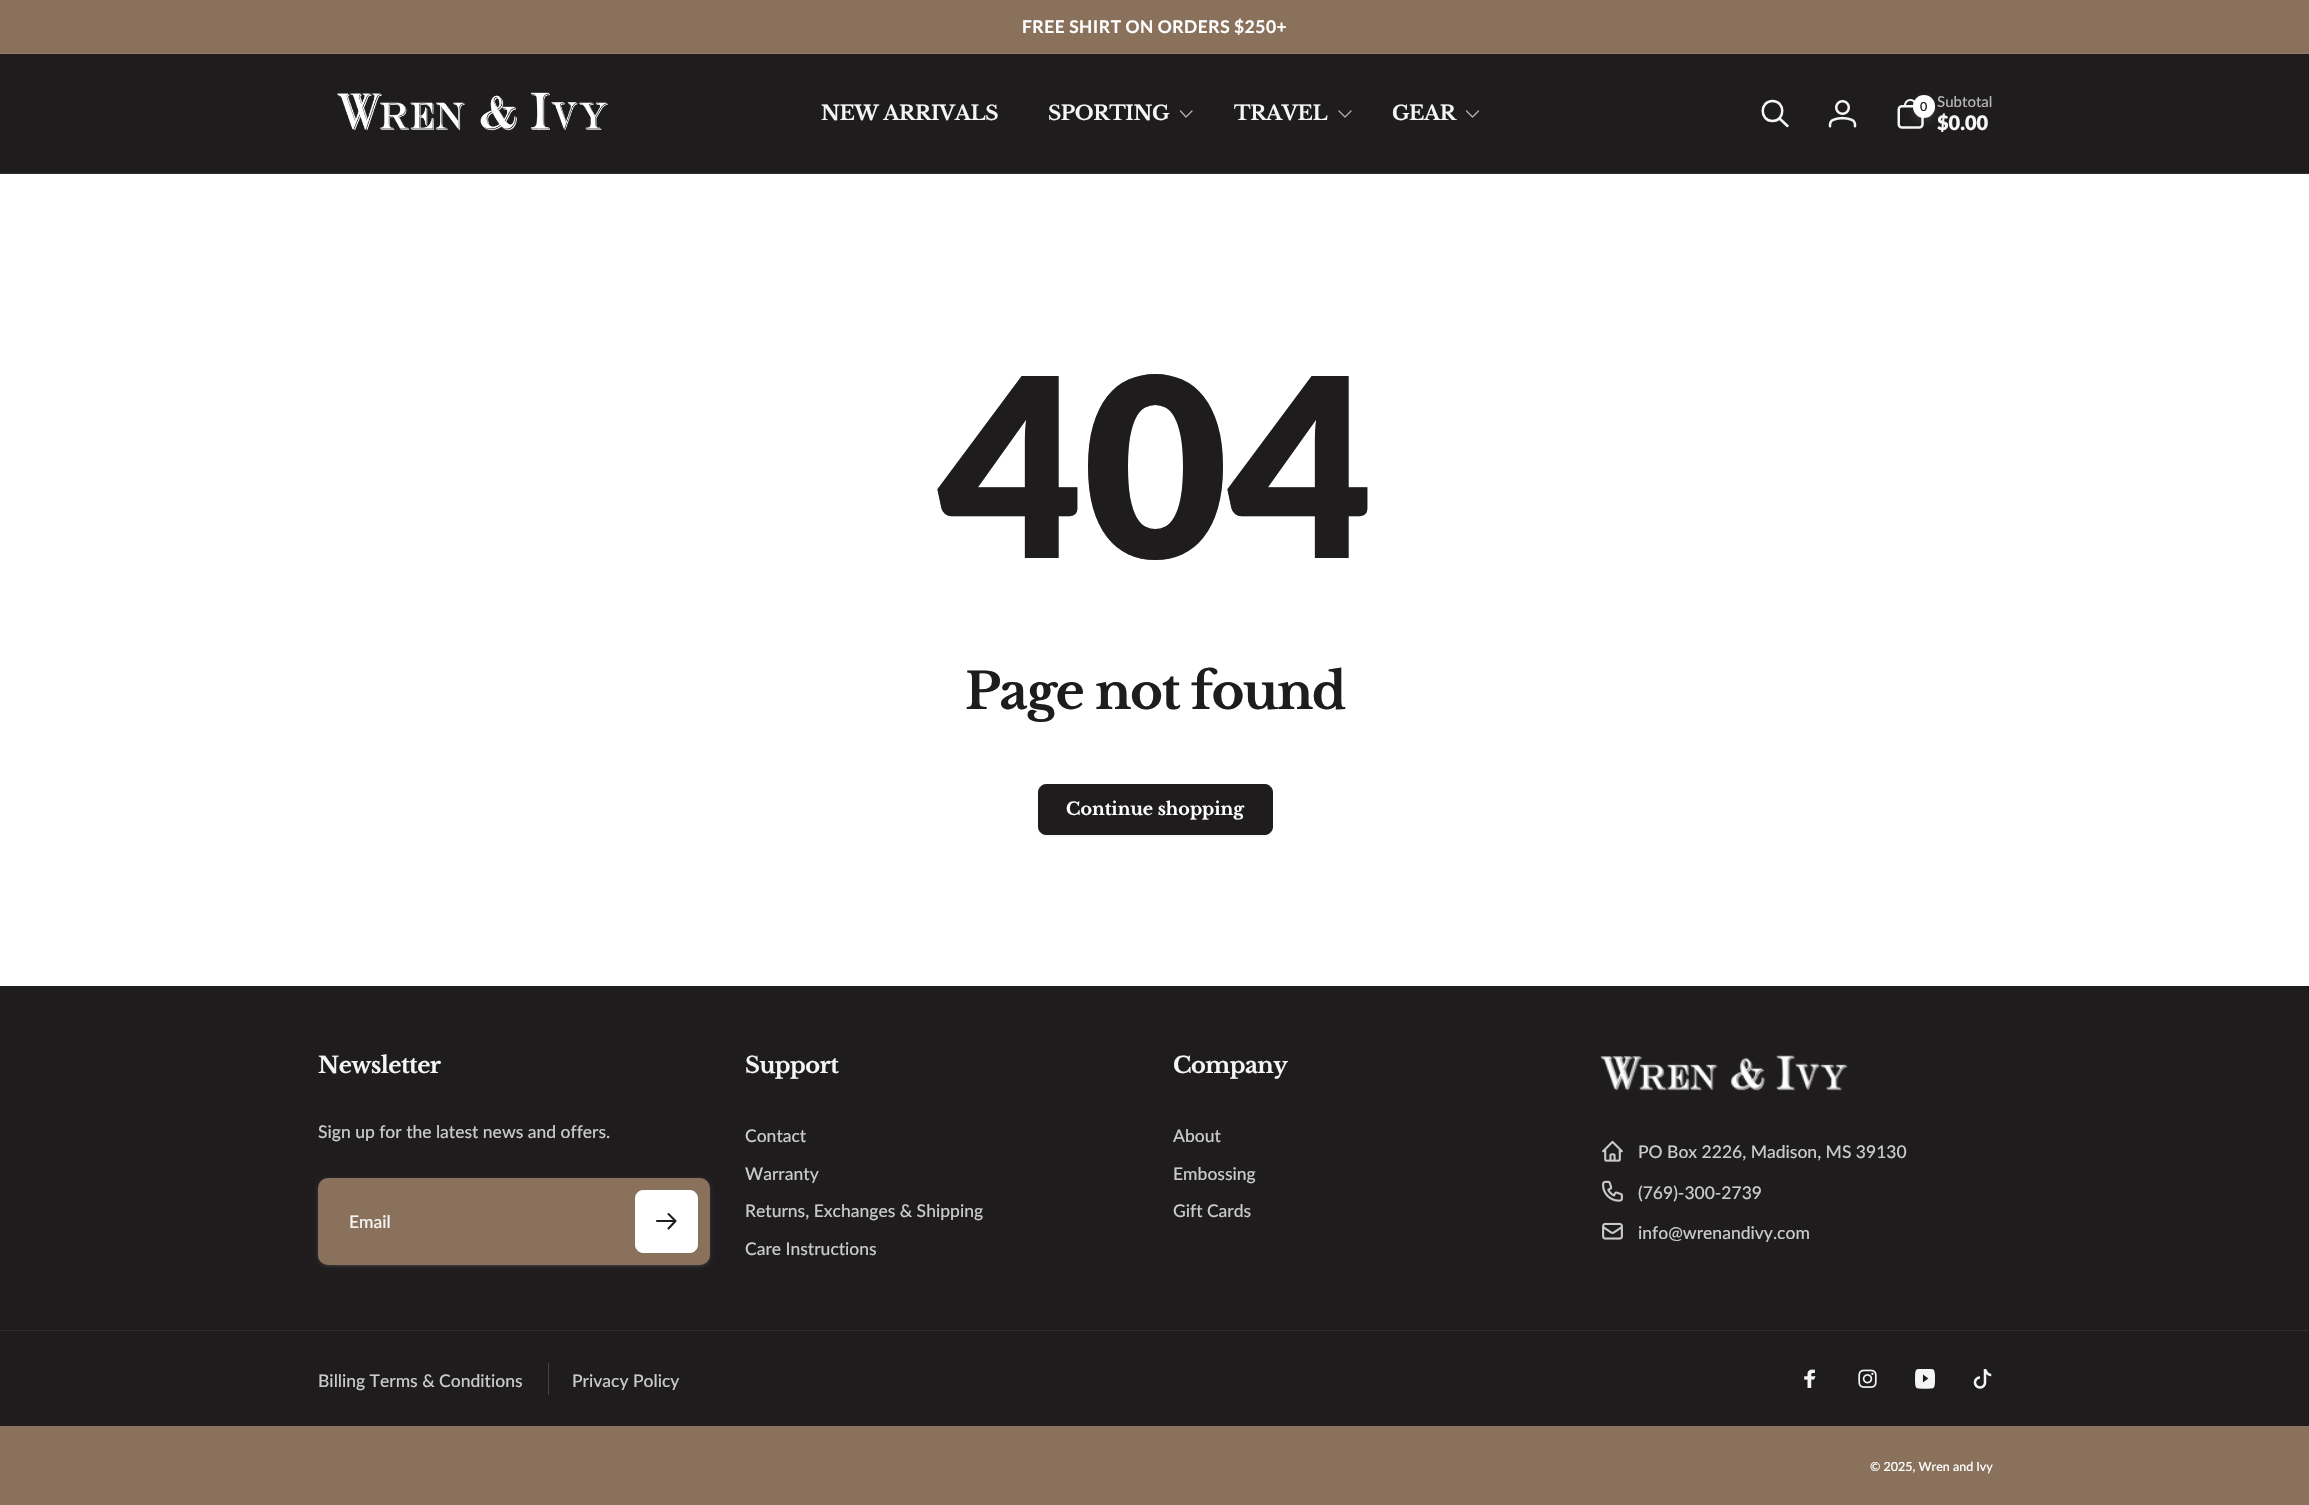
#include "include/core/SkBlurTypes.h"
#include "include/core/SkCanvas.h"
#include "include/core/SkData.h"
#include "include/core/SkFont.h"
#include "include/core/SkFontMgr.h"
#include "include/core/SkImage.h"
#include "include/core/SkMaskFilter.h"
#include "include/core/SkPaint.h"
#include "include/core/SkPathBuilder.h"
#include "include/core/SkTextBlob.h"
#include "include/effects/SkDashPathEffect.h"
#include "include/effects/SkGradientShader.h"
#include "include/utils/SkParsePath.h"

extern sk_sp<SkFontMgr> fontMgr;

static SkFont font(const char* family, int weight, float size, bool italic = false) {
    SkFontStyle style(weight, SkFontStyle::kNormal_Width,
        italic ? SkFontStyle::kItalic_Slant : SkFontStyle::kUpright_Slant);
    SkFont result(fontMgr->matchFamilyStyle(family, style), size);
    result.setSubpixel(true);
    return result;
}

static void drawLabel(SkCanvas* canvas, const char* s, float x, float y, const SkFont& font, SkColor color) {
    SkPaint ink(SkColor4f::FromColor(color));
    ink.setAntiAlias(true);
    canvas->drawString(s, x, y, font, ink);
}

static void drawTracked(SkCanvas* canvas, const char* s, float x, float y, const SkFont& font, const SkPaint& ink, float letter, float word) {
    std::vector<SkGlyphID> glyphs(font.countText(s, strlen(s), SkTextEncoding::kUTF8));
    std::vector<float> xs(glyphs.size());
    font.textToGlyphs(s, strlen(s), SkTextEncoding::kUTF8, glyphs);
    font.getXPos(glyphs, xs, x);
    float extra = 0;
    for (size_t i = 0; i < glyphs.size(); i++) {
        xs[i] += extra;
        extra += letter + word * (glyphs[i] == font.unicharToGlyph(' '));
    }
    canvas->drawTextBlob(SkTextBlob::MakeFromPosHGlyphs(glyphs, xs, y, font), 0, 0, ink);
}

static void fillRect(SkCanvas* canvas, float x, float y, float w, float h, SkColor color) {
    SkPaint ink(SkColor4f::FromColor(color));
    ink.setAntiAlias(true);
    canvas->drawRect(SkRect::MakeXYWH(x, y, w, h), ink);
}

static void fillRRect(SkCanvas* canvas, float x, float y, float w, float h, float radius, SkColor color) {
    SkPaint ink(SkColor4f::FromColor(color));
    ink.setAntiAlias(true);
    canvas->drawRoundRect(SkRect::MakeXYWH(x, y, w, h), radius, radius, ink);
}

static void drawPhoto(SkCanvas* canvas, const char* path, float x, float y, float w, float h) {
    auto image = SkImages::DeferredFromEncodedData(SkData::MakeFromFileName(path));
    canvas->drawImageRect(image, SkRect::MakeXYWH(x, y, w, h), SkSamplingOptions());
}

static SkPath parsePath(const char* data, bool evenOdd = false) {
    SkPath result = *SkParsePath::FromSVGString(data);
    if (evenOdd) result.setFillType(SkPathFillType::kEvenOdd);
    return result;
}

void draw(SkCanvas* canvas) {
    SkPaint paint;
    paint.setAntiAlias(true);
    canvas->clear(0xFFFFFFFF);
    fillRect(canvas, 0, 0, 2309, 53, 0xFF8A715C);
    fillRect(canvas, 0, 53, 2309, 1, 0xFF937C69);
    SkFont font1 = font("Lato", 700, 17.5f);
    paint.setColor(0xFFFFFFFF);
    drawTracked(canvas, "FREE SHIRT ON ORDERS $250+", 1022, 33, font1, paint, 0.5f, 0);
    fillRect(canvas, 0, 54, 2309, 119, 0xFF1E1C1D);
    fillRect(canvas, 0, 173, 2309, 1, 0xFF2F2D2E);
    drawPhoto(canvas, "assets/img1.png", 337, 92, 271, 39);
    SkFont font2 = font("Libre Baskerville", 700, 20);
    paint.setColor(0xFFF5F5F5);
    drawTracked(canvas, "NEW ARRIVALS", 821, 120, font2, paint, -0.4f, 0);
    drawTracked(canvas, "SPORTING", 1048, 120, font2, paint, -0.4f, 0);
    paint.setStroke(true);
    paint.setStrokeWidth(1.2f);
    paint.setStrokeCap(SkPaint::kRound_Cap);
    paint.setStrokeJoin(SkPaint::kRound_Join);
    paint.setColor(0xFFB5B4B4);
    canvas->drawPath(parsePath("M1192 111L1186 117L1180.5 111"), paint);
    paint.setStroke(false);
    paint.setColor(0xFFF5F5F5);
    drawTracked(canvas, "TRAVEL", 1234, 120, font2, paint, -0.4f, 0);
    paint.setStroke(true);
    paint.setColor(0xFFB5B4B4);
    canvas->drawPath(parsePath("M1351 111L1345 117L1339 111"), paint);
    paint.setStroke(false);
    paint.setColor(0xFFF5F5F5);
    drawTracked(canvas, "GEAR", 1392, 120, font2, paint, -0.4f, 0);
    paint.setStroke(true);
    paint.setColor(0xFFB5B4B4);
    canvas->drawPath(parsePath("M1478.5 111L1472.5 117L1466.5 111"), paint);
    paint.setStrokeWidth(2.5f);
    paint.setColor(0xFFF5F5F5);
    canvas->drawPath(parsePath("M1787.5 126L1779.5 118.5M1772.5 121C1785.5 121 1785.5 101 1772.5 101C1759.5 101 1759.5 121 1772.5 121Z"), paint);
    drawPhoto(canvas, "assets/img2.png", 1828, 100, 29, 28);
    drawPhoto(canvas, "assets/img3.png", 1897, 99, 27, 30);
    paint.setStroke(false);
    paint.setColor(0x0FF5F5F5);
    paint.setMaskFilter(SkMaskFilter::MakeBlur(kNormal_SkBlurStyle, 2.5f));
    canvas->drawRoundRect(SkRect::MakeXYWH(1914, 99, 20, 20), 10, 10, paint);
    paint.setMaskFilter(nullptr);
    paint.setColor(0x1AF5F5F5);
    paint.setMaskFilter(SkMaskFilter::MakeBlur(kNormal_SkBlurStyle, 4));
    canvas->drawRoundRect(SkRect::MakeXYWH(1914, 101, 20, 20), 10, 10, paint);
    paint.setMaskFilter(nullptr);
    fillRRect(canvas, 1913, 95, 22, 23, 11, 0xFFFFFFFF);
    SkFont font3 = font("Lato", 500, 12.5f);
    drawLabel(canvas, "0", 1920, 111, font3, 0xFF1E1C1D);
    SkFont font4 = font("Lato", 500, 15);
    drawLabel(canvas, "Subtotal", 1937, 107, font4, 0xFFB5B4B4);
    SkFont font5 = font("Lato", 800, 20);
    drawLabel(canvas, "$0.00", 1937, 130, font5, 0xFFF5F5F5);
    SkFont font6 = font("Lato", 800, 250);
    drawLabel(canvas, "404", 938, 558, font6, 0xFF1E1C1D);
    SkFont font7 = font("Libre Baskerville", 700, 50);
    paint.setColor(0xFF1E1C1D);
    drawTracked(canvas, "Page not found", 965, 709, font7, paint, -1.5f, 0);
    paint.setColor(0x0D1E1C1D);
    paint.setMaskFilter(SkMaskFilter::MakeBlur(kNormal_SkBlurStyle, 1));
    canvas->drawRoundRect(SkRect::MakeXYWH(1038, 785, 235, 51), 8, 8, paint);
    paint.setMaskFilter(nullptr);
    paint.setColor(0xFF1E1C1D);
    canvas->drawRoundRect(SkRect::MakeXYWH(1038.5f, 784.5f, 234, 50), 7.5f, 7.5f, paint);
    paint.setStroke(true);
    paint.setStrokeWidth(1);
    paint.setStrokeCap(SkPaint::kButt_Cap);
    paint.setStrokeJoin(SkPaint::kMiter_Join);
    canvas->drawRoundRect(SkRect::MakeXYWH(1038.5f, 784.5f, 234, 50), 7.5f, 7.5f, paint);
    SkFont font8 = font("Libre Baskerville", 700, 17.5f);
    drawLabel(canvas, "Continue shopping", 1066, 815, font8, 0xFFFFFFFF);
    fillRect(canvas, 0, 986, 2309, 440, 0xFF1E1C1D);
    SkFont font9 = font("Libre Baskerville", 700, 22.5f);
    paint.setStroke(false);
    paint.setColor(0xFFF5F5F5);
    drawTracked(canvas, "Newsletter", 318, 1073, font9, paint, -0.5f, 0);
    SkFont font10 = font("Lato", 500, 17.5f);
    drawLabel(canvas, "Sign up for the latest news and offers.", 318, 1138, font10, 0xFFCACACA);
    paint.setColor(0x1AF5F5F5);
    paint.setMaskFilter(SkMaskFilter::MakeBlur(kNormal_SkBlurStyle, 2));
    canvas->drawRoundRect(SkRect::MakeXYWH(318, 1179, 392, 87), 10, 10, paint);
    paint.setMaskFilter(nullptr);
    paint.setColor(0x0FF5F5F5);
    paint.setMaskFilter(SkMaskFilter::MakeBlur(kNormal_SkBlurStyle, 1));
    canvas->drawRoundRect(SkRect::MakeXYWH(318, 1179, 392, 87), 10, 10, paint);
    paint.setMaskFilter(nullptr);
    fillRRect(canvas, 318, 1178, 392, 87, 10, 0xFF8A715C);
    drawLabel(canvas, "Email", 349, 1228, font10, 0xFFF5F5F5);
    paint.setColor(0xFFFFFFFF);
    canvas->drawRoundRect(SkRect::MakeXYWH(635.5f, 1190.5f, 62, 62), 7.5f, 7.5f, paint);
    paint.setStroke(true);
    canvas->drawRoundRect(SkRect::MakeXYWH(635.5f, 1190.5f, 62, 62), 7.5f, 7.5f, paint);
    paint.setStrokeWidth(2.1f);
    paint.setStrokeCap(SkPaint::kRound_Cap);
    paint.setStrokeJoin(SkPaint::kRound_Join);
    paint.setColor(0xFF1E1C1D);
    canvas->drawPath(parsePath("M668.5 1214L675.5 1221M675.5 1221L668.5 1228.5M675.5 1221H657"), paint);
    paint.setStroke(false);
    paint.setColor(0xFFF5F5F5);
    drawTracked(canvas, "Support", 745, 1073, font9, paint, -0.5f, 0);
    drawLabel(canvas, "Contact", 745, 1142, font10, 0xFFCACACA);
    drawLabel(canvas, "Warranty", 745, 1180, font10, 0xFFCACACA);
    drawLabel(canvas, "Returns, Exchanges & Shipping", 745, 1217, font10, 0xFFCACACA);
    drawLabel(canvas, "Care Instructions", 745, 1255, font10, 0xFFCACACA);
    drawTracked(canvas, "Company", 1173, 1073, font9, paint, -0.5f, 0);
    drawLabel(canvas, "About", 1173, 1142, font10, 0xFFCACACA);
    drawLabel(canvas, "Embossing", 1173, 1180, font10, 0xFFCACACA);
    drawLabel(canvas, "Gift Cards", 1173, 1217, font10, 0xFFCACACA);
    drawPhoto(canvas, "assets/img4.png", 1600, 1055, 248, 36);
    drawPhoto(canvas, "assets/img5.png", 1602, 1140, 21, 22);
    drawLabel(canvas, "PO Box 2226, Madison, MS 39130", 1638, 1158, font10, 0xFFCACACA);
    drawPhoto(canvas, "assets/img6.png", 1602, 1180, 21, 22);
    drawLabel(canvas, "(769)-300-2739", 1638, 1199, font10, 0xFFCACACA);
    drawPhoto(canvas, "assets/img7.png", 1602, 1222, 21, 18);
    drawLabel(canvas, "info@wrenandivy.com", 1638, 1239, font10, 0xFFCACACA);
    fillRect(canvas, 0, 1330, 2309, 1, 0xFF2F2D2E);
    drawLabel(canvas, "Billing Terms & Conditions", 318, 1387, font10, 0xFFCACACA);
    fillRect(canvas, 548, 1363, 1, 32, 0xFF454344);
    drawLabel(canvas, "Privacy Policy", 572, 1387, font10, 0xFFCACACA);
    drawPhoto(canvas, "assets/img8.png", 1804, 1369, 12, 19);
    drawPhoto(canvas, "assets/img9.png", 1858, 1369, 19, 19);
    drawPhoto(canvas, "assets/img10.png", 1915, 1369, 20, 20);
    drawPhoto(canvas, "assets/img11.png", 1973, 1369, 19, 20);
    fillRect(canvas, 0, 1426, 2309, 79, 0xFF8A715C);
    drawLabel(canvas, "© 2025, Wren and Ivy", 1870, 1471, font3, 0xFFFFFFFF);
}
